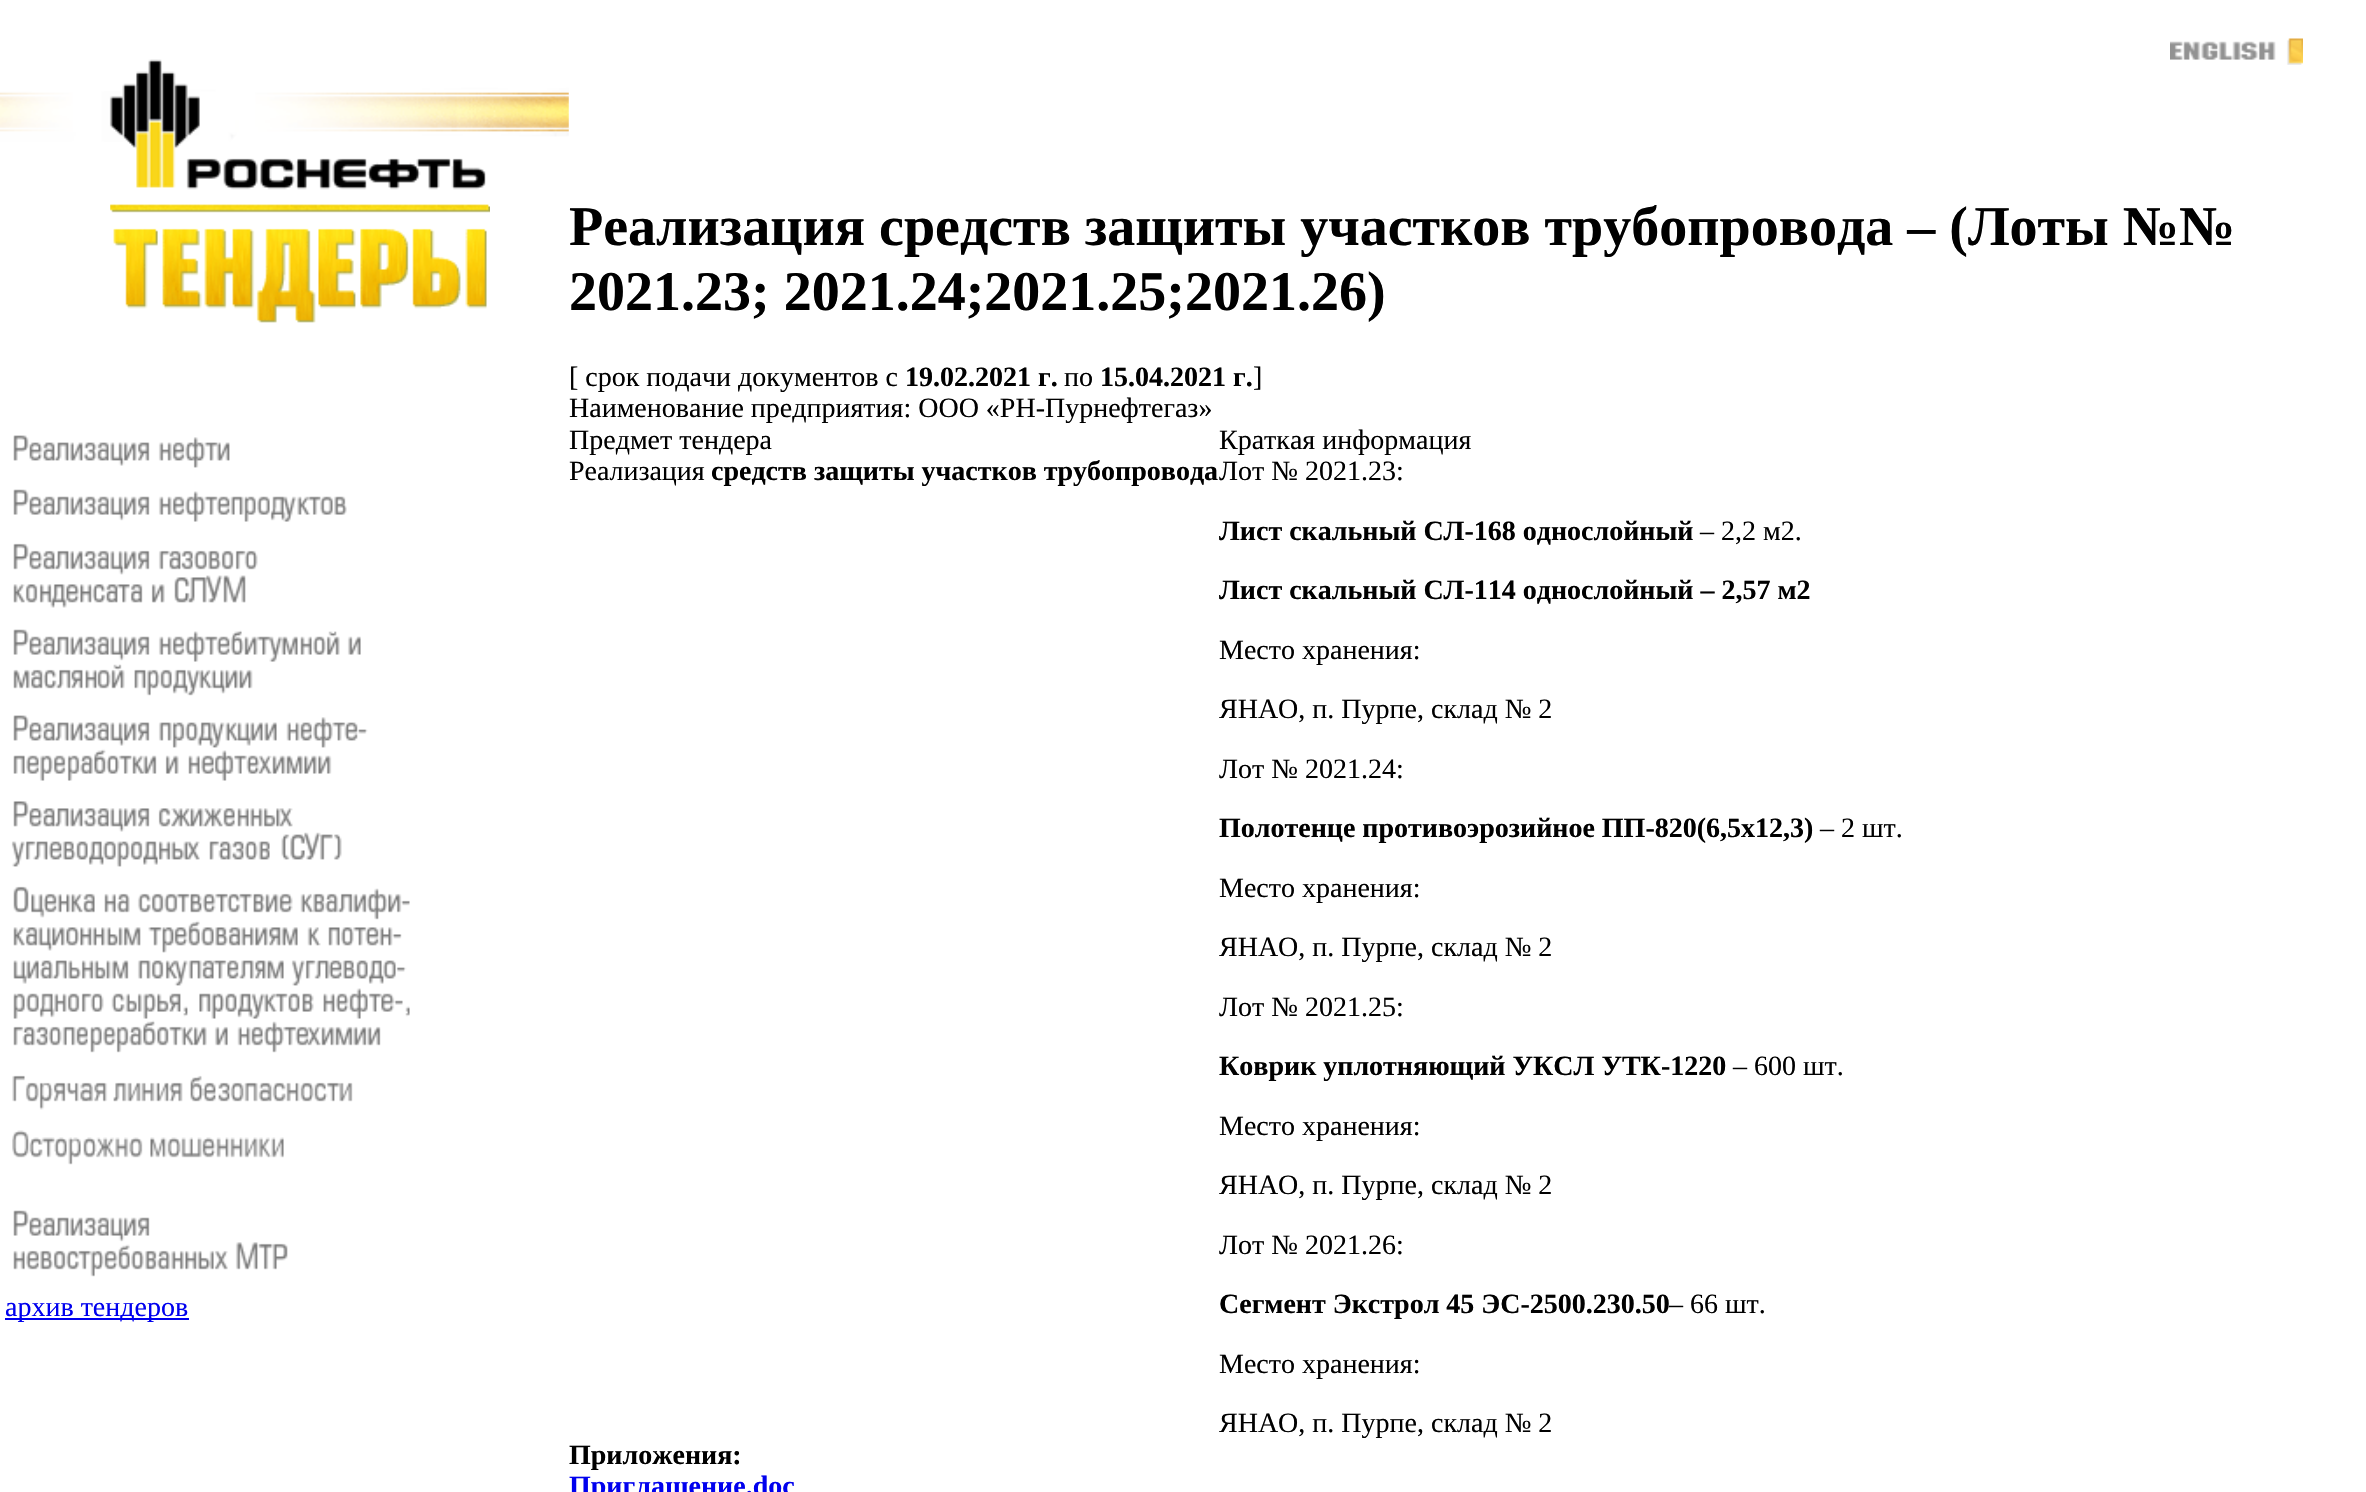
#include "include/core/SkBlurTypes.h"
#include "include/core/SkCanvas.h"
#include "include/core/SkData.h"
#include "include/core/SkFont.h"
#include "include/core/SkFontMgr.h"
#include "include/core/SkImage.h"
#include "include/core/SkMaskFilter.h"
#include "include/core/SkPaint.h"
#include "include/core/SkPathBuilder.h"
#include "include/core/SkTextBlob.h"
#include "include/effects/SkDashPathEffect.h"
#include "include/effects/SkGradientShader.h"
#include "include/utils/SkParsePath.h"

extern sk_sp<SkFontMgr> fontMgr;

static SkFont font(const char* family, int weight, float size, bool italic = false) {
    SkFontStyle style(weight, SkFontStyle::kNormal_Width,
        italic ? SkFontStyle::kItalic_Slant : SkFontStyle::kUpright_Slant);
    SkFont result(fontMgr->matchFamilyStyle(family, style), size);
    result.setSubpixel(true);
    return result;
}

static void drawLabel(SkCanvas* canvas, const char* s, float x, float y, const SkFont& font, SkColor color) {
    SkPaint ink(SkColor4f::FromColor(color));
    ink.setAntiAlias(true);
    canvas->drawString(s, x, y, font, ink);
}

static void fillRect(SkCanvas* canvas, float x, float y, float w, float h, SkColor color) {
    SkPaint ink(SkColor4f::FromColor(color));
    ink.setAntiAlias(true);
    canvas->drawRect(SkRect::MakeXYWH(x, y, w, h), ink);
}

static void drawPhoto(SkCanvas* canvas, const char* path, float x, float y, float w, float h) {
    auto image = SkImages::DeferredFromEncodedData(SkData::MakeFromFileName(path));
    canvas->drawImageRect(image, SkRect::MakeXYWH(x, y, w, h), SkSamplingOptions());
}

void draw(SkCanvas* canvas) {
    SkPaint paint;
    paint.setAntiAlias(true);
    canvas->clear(0xFFFFFFFF);
    drawPhoto(canvas, "assets/img1.png", 2170, 38, 133, 27);
    drawPhoto(canvas, "assets/img2.png", 0, 59, 569, 131);
    drawPhoto(canvas, "assets/img3.png", 110, 204, 380, 119);
    drawPhoto(canvas, "assets/img4.png", 13, 435, 217, 33);
    drawPhoto(canvas, "assets/img5.png", 13, 489, 334, 33);
    drawPhoto(canvas, "assets/img6.png", 13, 543, 245, 65);
    drawPhoto(canvas, "assets/img7.png", 13, 629, 348, 67);
    drawPhoto(canvas, "assets/img8.png", 13, 715, 355, 66);
    drawPhoto(canvas, "assets/img9.png", 11, 801, 331, 66);
    drawPhoto(canvas, "assets/img10.png", 13, 886, 397, 167);
    drawPhoto(canvas, "assets/img11.png", 12, 1075, 341, 35);
    drawPhoto(canvas, "assets/img12.png", 12, 1130, 272, 35);
    drawPhoto(canvas, "assets/img13.png", 13, 1210, 275, 67);
    fillRect(canvas, 5, 1318, 184, 2, 0xFF0000EE);
    SkFont font1 = font("Liberation Serif", 400, 28);
    drawLabel(canvas, "архив тендеров", 5, 1316, font1, 0xFF0000EE);
    SkFont font2 = font("Liberation Serif", 700, 56);
    drawLabel(canvas, "Реализация средств защиты участков трубопровода – (Лоты №№", 569, 245, font2, 0xFF000000);
    drawLabel(canvas, "2021.23; 2021.24;2021.25;2021.26)", 569, 310, font2, 0xFF000000);
    drawLabel(canvas, "[ срок подачи документов с", 569, 386, font1, 0xFF000000);
    SkFont font3 = font("Liberation Serif", 700, 28);
    drawLabel(canvas, "19.02.2021 г.", 905, 386, font3, 0xFF000000);
    drawLabel(canvas, "по", 1064, 386, font1, 0xFF000000);
    drawLabel(canvas, "15.04.2021 г.", 1100, 386, font3, 0xFF000000);
    drawLabel(canvas, "]", 1253, 386, font1, 0xFF000000);
    drawLabel(canvas, "Наименование предприятия: ООО «РН-Пурнефтегаз»", 569, 417, font1, 0xFF000000);
    drawLabel(canvas, "Предмет тендера", 569, 449, font1, 0xFF000000);
    drawLabel(canvas, "Краткая информация", 1219, 449, font1, 0xFF000000);
    drawLabel(canvas, "Реализация", 569, 480, font1, 0xFF000000);
    drawLabel(canvas, "средств защиты участков трубопровода", 711, 480, font3, 0xFF000000);
    drawLabel(canvas, "Лот № 2021.23:", 1219, 480, font1, 0xFF000000);
    drawLabel(canvas, "Лист скальный СЛ-168 однослойный", 1219, 540, font3, 0xFF000000);
    drawLabel(canvas, "– 2,2 м2.", 1700, 540, font1, 0xFF000000);
    drawLabel(canvas, "Лист скальный СЛ-114 однослойный – 2,57 м2", 1219, 599, font3, 0xFF000000);
    drawLabel(canvas, "Место хранения:", 1219, 659, font1, 0xFF000000);
    drawLabel(canvas, "ЯНАО, п. Пурпе, склад № 2", 1219, 718, font1, 0xFF000000);
    drawLabel(canvas, "Лот № 2021.24:", 1219, 778, font1, 0xFF000000);
    drawLabel(canvas, "Полотенце противоэрозийное ПП-820(6,5х12,3)", 1219, 837, font3, 0xFF000000);
    drawLabel(canvas, "– 2 шт.", 1820, 837, font1, 0xFF000000);
    drawLabel(canvas, "Место хранения:", 1219, 897, font1, 0xFF000000);
    drawLabel(canvas, "ЯНАО, п. Пурпе, склад № 2", 1219, 956, font1, 0xFF000000);
    drawLabel(canvas, "Лот № 2021.25:", 1219, 1016, font1, 0xFF000000);
    drawLabel(canvas, "Коврик уплотняющий УКСЛ УТК-1220", 1219, 1075, font3, 0xFF000000);
    drawLabel(canvas, "– 600 шт.", 1733, 1075, font1, 0xFF000000);
    drawLabel(canvas, "Место хранения:", 1219, 1135, font1, 0xFF000000);
    drawLabel(canvas, "ЯНАО, п. Пурпе, склад № 2", 1219, 1194, font1, 0xFF000000);
    drawLabel(canvas, "Лот № 2021.26:", 1219, 1254, font1, 0xFF000000);
    drawLabel(canvas, "Сегмент Экстрол 45 ЭС-2500.230.50", 1219, 1313, font3, 0xFF000000);
    drawLabel(canvas, "– 66 шт.", 1669, 1313, font1, 0xFF000000);
    drawLabel(canvas, "Место хранения:", 1219, 1373, font1, 0xFF000000);
    drawLabel(canvas, "ЯНАО, п. Пурпе, склад № 2", 1219, 1432, font1, 0xFF000000);
    drawLabel(canvas, "Приложения:", 569, 1464, font3, 0xFF000000);
    drawLabel(canvas, "Приглашение.doc", 569, 1495, font3, 0xFF0000EE);
}
